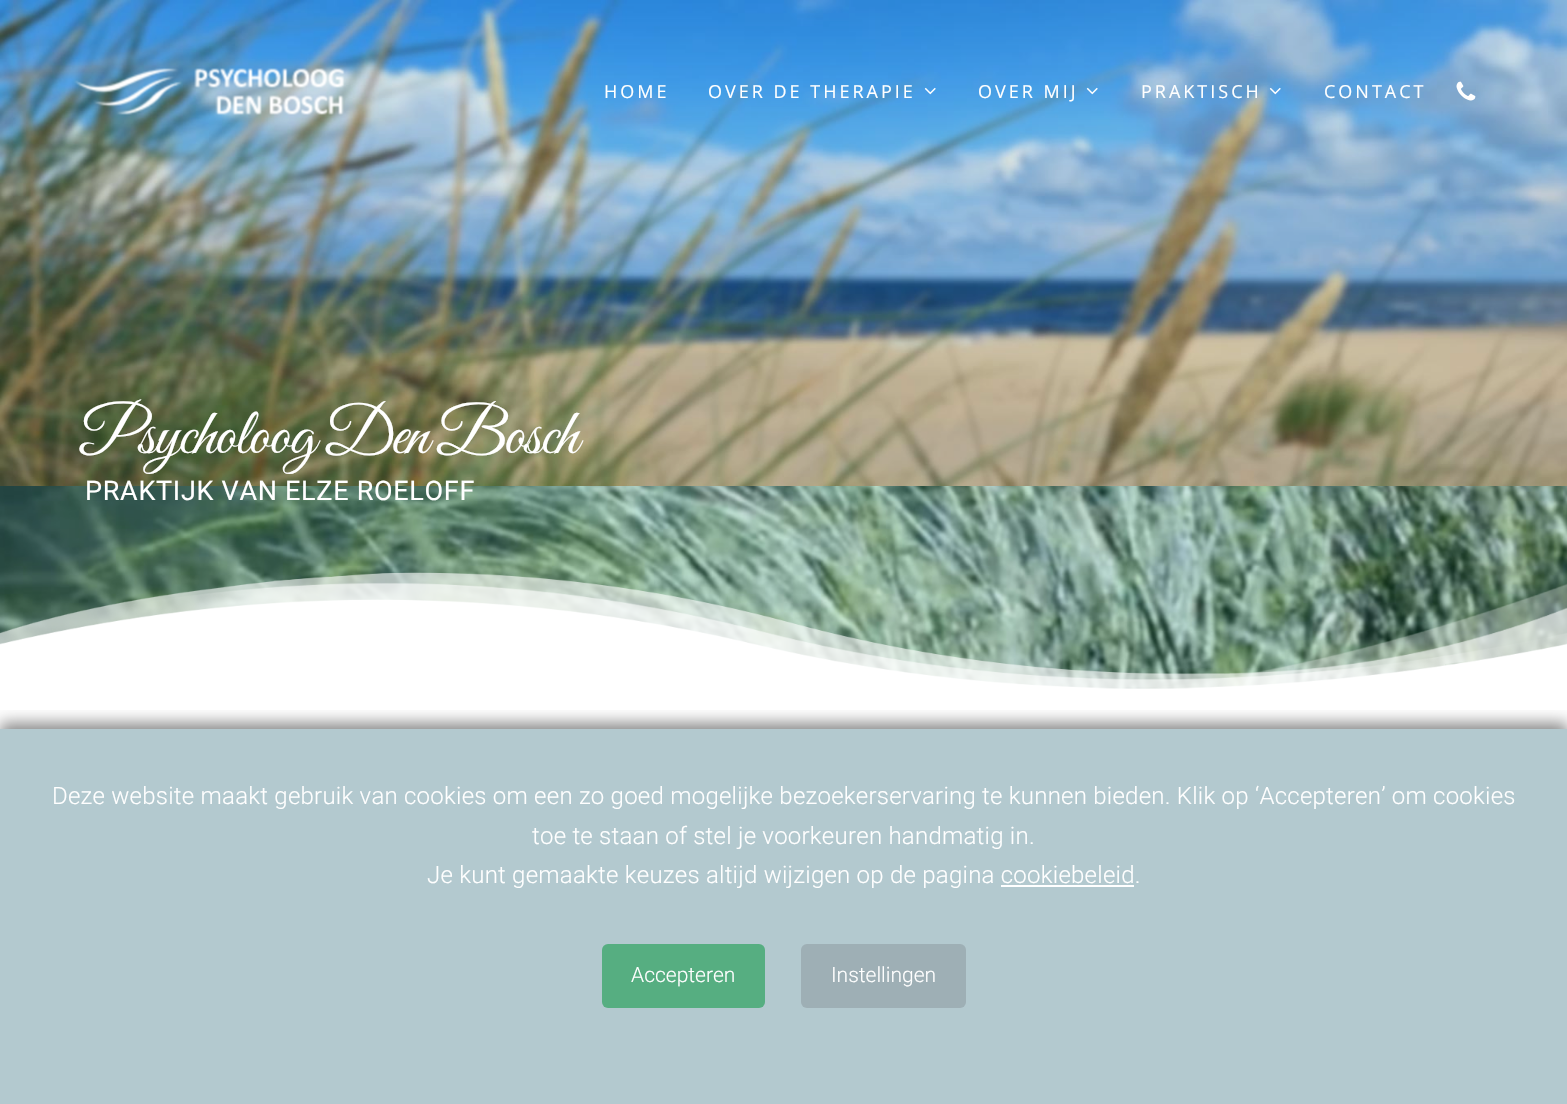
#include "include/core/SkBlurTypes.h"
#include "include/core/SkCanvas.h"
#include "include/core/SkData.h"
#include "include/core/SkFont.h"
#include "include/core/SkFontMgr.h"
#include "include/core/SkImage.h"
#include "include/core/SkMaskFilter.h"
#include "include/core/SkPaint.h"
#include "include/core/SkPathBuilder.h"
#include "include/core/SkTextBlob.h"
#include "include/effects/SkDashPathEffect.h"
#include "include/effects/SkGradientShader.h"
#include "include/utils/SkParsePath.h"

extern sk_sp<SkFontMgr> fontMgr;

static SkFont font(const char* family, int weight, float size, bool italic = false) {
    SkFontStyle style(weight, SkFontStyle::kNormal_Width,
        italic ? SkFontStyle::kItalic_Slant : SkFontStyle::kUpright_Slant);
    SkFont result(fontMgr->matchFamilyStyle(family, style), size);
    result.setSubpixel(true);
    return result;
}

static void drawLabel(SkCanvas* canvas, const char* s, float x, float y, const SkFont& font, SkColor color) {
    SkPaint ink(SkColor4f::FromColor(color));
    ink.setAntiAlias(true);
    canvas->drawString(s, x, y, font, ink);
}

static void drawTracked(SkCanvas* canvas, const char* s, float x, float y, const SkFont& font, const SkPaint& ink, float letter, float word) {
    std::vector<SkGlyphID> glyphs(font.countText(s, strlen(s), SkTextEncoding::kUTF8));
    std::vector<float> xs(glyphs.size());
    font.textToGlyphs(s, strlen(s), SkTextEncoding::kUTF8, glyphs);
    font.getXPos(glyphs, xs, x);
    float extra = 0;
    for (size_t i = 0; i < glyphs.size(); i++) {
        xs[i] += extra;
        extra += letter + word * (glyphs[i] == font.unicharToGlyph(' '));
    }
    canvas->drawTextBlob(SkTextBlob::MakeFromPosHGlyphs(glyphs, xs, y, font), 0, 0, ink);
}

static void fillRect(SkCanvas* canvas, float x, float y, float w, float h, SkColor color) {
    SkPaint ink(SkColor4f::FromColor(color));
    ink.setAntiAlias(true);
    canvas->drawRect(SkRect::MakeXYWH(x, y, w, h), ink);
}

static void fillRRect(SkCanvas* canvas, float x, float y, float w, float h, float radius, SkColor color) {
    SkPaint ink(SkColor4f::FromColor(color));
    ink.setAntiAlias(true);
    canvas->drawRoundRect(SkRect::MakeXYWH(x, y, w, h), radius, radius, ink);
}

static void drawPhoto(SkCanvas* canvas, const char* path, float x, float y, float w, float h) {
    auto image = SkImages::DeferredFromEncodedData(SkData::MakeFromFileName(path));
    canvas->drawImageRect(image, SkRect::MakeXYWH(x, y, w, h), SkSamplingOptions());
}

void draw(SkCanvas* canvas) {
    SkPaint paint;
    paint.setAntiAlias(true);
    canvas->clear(0xFFFFFFFF);
    fillRect(canvas, 0, 729, 1567, 375, 0xFFB3C9CF);
    drawPhoto(canvas, "assets/img7.png", 0, 0, 1567, 486);
    drawPhoto(canvas, "assets/img1.png", 74, 68, 271, 47);
    SkFont font1 = font("Open Sans", 400, 18);
    paint.setColor(0xFFFFFFFF);
    drawTracked(canvas, "HOME", 604, 98, font1, paint, 3, 0);
    drawTracked(canvas, "OVER DE THERAPIE", 708, 98, font1, paint, 3, 0);
    drawPhoto(canvas, "assets/img2.png", 924, 87, 12, 8);
    drawTracked(canvas, "OVER MIJ", 978, 98, font1, paint, 3, 0);
    drawPhoto(canvas, "assets/img3.png", 1086, 87, 12, 8);
    drawTracked(canvas, "PRAKTISCH", 1141, 98, font1, paint, 3, 0);
    drawPhoto(canvas, "assets/img4.png", 1269, 87, 12, 8);
    drawTracked(canvas, "CONTACT", 1324, 98, font1, paint, 3, 0);
    drawPhoto(canvas, "assets/img5.png", 1456, 81, 20, 20);
    drawPhoto(canvas, "assets/img6.png", 0, 486, 1567, 203);
    SkFont font2 = font("Great Vibes", 400, 66);
    drawTracked(canvas, "Psycholoog Den Bosch", 79, 453, font2, paint, -1.5f, -1);
    SkFont font3 = font("Roboto", 400, 27);
    drawTracked(canvas, "PRAKTIJK VAN ELZE ROELOFF", 85, 500, font3, paint, 0.7f, 0);
    drawPhoto(canvas, "assets/img8.png", 0, 572, 1567, 118);
    canvas->save();
    canvas->clipRect(SkRect::MakeXYWH(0, 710, 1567, 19));
    paint.setColor(0x78000000);
    paint.setMaskFilter(SkMaskFilter::MakeBlur(kNormal_SkBlurStyle, 7.5f));
    canvas->drawRect(SkRect::MakeXYWH(0, 723, 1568, 375), paint);
    paint.setMaskFilter(nullptr);
    canvas->restore();
    SkFont font4 = font("Roboto", 300, 24);
    paint.setColor(0xFFFFFFFF);
    drawTracked(canvas, "Deze website maakt gebruik van cookies om een zo goed mogelijke bezoekerservaring te kunnen bieden. Klik op ‘Accepteren’ om cookies", 52, 804, font4, paint, 0.24f, 0);
    drawTracked(canvas, "toe te staan of stel je voorkeuren handmatig in.", 532, 844, font4, paint, 0.24f, 0);
    drawTracked(canvas, "Je kunt gemaakte keuzes altijd wijzigen op de pagina cookiebeleid.", 427, 883, font4, paint, 0.24f, 0);
    fillRect(canvas, 1001, 885, 133, 2, 0xFFFFFFFF);
    fillRRect(canvas, 602, 944, 163, 64, 6, 0xFF56AE81);
    SkFont font5 = font("Roboto", 300, 21);
    drawLabel(canvas, "Accepteren", 631, 982, font5, 0xFFFFFFFF);
    fillRRect(canvas, 801, 944, 165, 64, 6, 0xFF9EAFB5);
    drawLabel(canvas, "Instellingen", 831, 982, font5, 0xFFFFFFFF);
}
